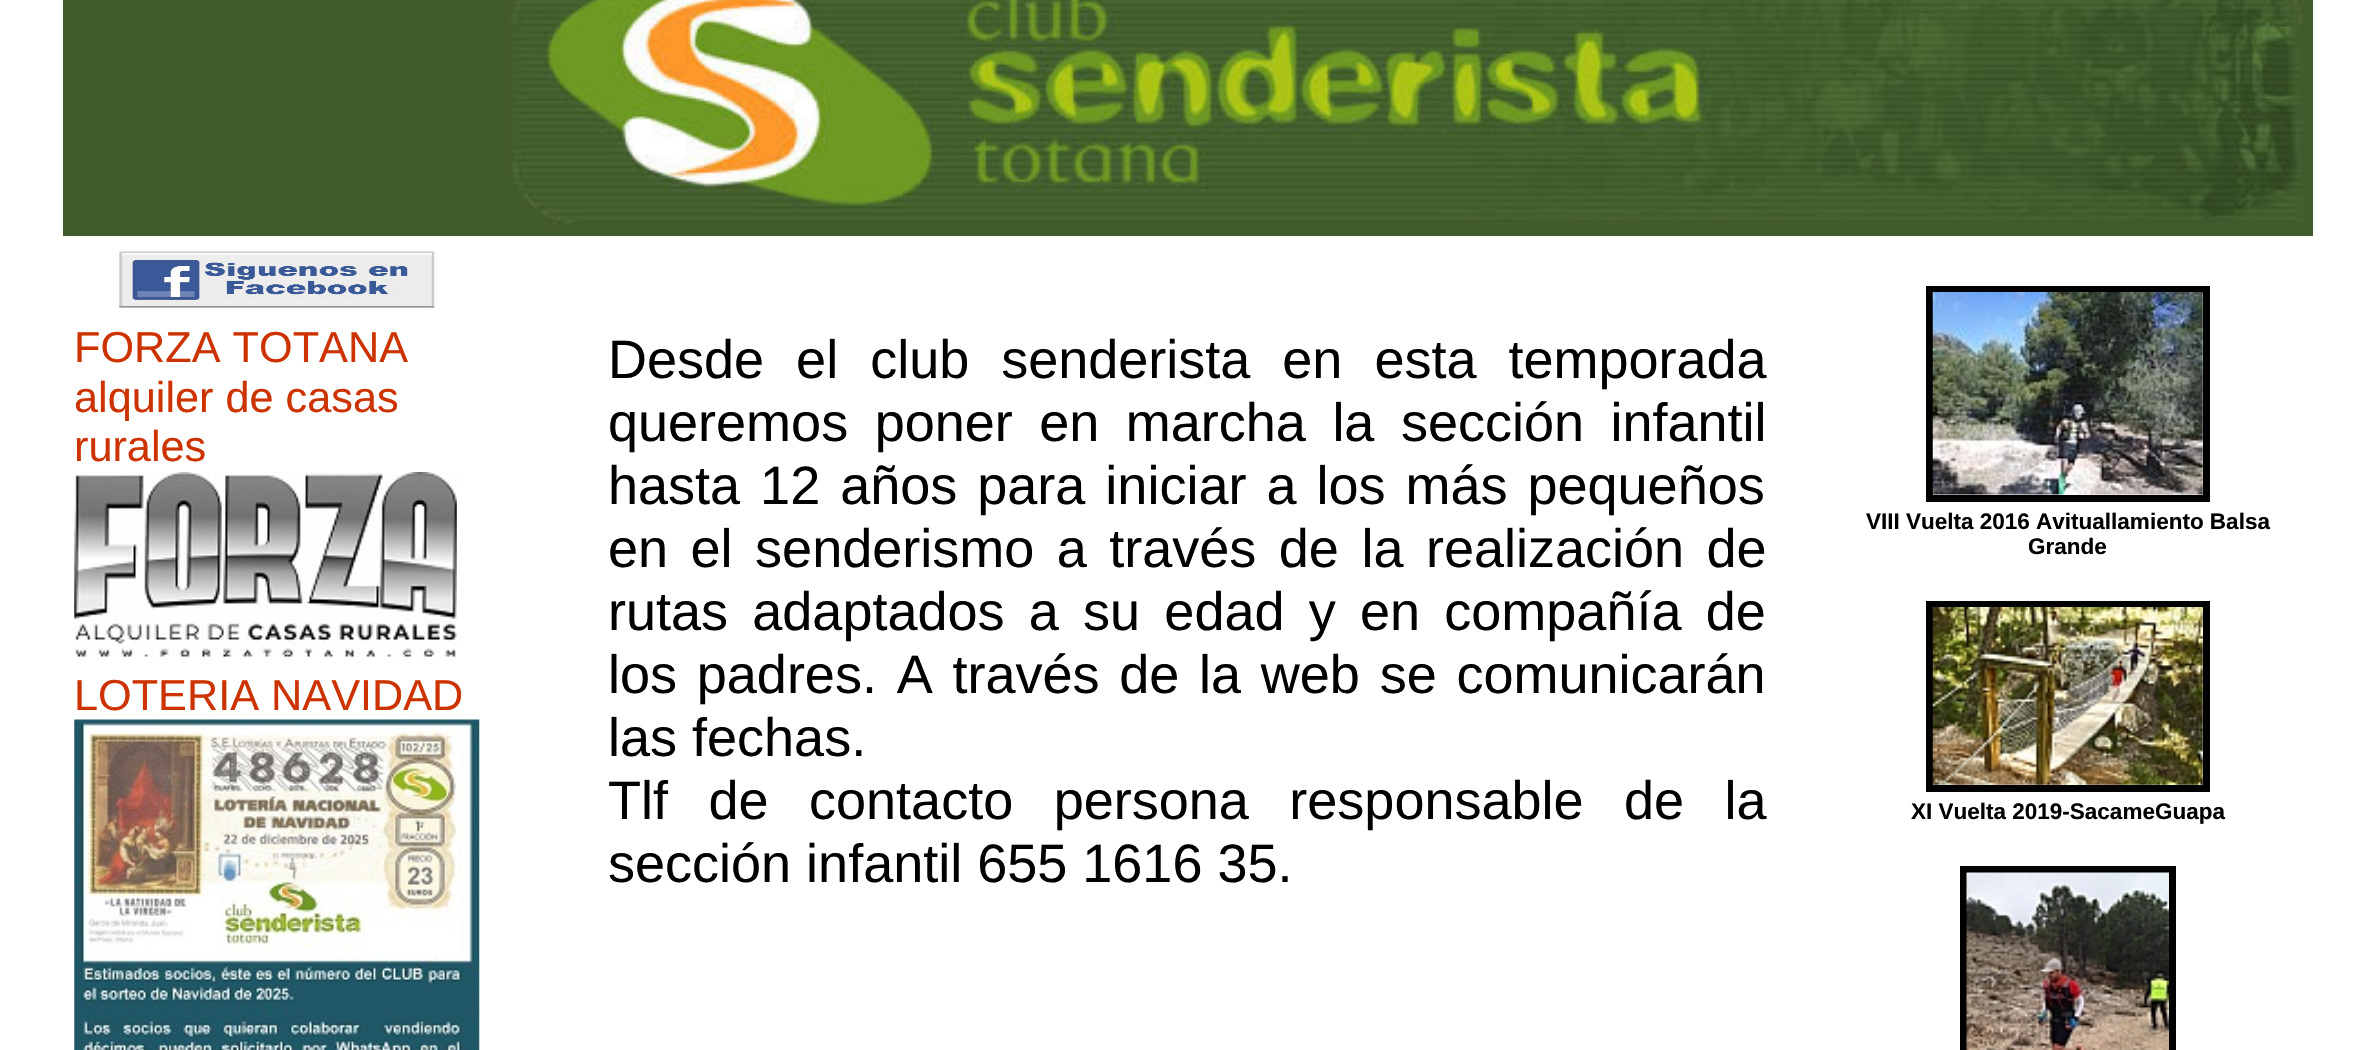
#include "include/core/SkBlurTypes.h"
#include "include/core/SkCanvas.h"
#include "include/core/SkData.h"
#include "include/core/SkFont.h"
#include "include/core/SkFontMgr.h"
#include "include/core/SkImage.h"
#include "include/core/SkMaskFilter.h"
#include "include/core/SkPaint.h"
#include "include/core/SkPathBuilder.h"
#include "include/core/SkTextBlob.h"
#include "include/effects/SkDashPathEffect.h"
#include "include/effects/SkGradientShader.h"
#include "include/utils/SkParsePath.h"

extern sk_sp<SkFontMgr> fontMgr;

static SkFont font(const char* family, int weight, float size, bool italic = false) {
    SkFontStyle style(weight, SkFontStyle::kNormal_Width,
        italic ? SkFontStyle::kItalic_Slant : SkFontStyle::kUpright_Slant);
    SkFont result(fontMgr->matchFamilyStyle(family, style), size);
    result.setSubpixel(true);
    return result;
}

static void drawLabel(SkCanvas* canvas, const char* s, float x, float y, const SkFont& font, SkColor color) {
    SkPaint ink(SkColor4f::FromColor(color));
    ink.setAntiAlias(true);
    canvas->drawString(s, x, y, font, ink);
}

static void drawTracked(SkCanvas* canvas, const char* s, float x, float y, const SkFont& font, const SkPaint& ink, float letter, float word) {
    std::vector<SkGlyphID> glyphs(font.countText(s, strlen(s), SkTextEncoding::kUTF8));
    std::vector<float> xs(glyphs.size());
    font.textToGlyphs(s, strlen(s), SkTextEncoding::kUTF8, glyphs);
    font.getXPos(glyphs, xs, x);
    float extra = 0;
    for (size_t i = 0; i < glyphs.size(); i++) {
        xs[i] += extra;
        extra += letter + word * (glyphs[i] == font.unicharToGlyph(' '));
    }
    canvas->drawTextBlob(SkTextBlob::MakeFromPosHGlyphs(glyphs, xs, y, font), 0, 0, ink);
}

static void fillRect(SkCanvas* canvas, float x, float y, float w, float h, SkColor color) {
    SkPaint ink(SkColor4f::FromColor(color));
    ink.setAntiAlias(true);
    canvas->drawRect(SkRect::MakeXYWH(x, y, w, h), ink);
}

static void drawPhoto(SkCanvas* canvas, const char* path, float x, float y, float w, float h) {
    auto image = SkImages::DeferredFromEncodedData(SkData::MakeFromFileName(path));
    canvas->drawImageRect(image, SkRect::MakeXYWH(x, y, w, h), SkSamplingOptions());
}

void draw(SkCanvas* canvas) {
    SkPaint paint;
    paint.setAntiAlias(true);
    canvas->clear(0xFFFFFFFF);
    fillRect(canvas, 63, 0, 2250, 236, 0xFF415B2C);
    drawPhoto(canvas, "assets/img1.png", 509, 0, 1797, 227);
    drawPhoto(canvas, "assets/img2.png", 119, 251, 316, 57);
    SkFont font1 = font("Liberation Sans", 400, 43.25f);
    drawLabel(canvas, "FORZA TOTANA", 74, 362, font1, 0xFFCC3300);
    drawLabel(canvas, "alquiler de casas", 74, 412, font1, 0xFFCC3300);
    drawLabel(canvas, "rurales", 74, 461, font1, 0xFFCC3300);
    drawPhoto(canvas, "assets/img3.png", 74, 472, 383, 185);
    drawLabel(canvas, "LOTERIA NAVIDAD", 74, 710, font1, 0xFFCC3300);
    drawPhoto(canvas, "assets/img4.png", 74, 719, 406, 331);
    SkFont font2 = font("Liberation Sans", 400, 54);
    paint.setColor(0xFF000000);
    drawTracked(canvas, "Desde el club senderista en esta temporada", 608, 378, font2, paint, 0, 17);
    drawTracked(canvas, "queremos poner en marcha la sección infantil", 608, 441, font2, paint, 0, 11.5f);
    drawTracked(canvas, "hasta 12 años para iniciar a los más pequeños", 608, 504, font2, paint, 0, 5);
    drawTracked(canvas, "en el senderismo a través de la realización de", 608, 567, font2, paint, 0, 7.5f);
    drawTracked(canvas, "rutas adaptados a su edad y en compañía de", 608, 630, font2, paint, 0, 9.25f);
    drawTracked(canvas, "los padres. A través de la web se comunicarán", 608, 693, font2, paint, 0, 4.75f);
    drawLabel(canvas, "las fechas.", 608, 756, font2, 0xFF000000);
    drawTracked(canvas, "Tlf de contacto persona responsable de la", 608, 819, font2, paint, 0, 25.5f);
    drawLabel(canvas, "sección infantil 655 1616 35.", 608, 882, font2, 0xFF000000);
    paint.setStroke(true);
    paint.setStrokeWidth(7);
    canvas->drawRect(SkRect::MakeXYWH(1929.5f, 289.5f, 277, 209), paint);
    drawPhoto(canvas, "assets/img5.png", 1932, 292, 271, 203);
    SkFont font3 = font("Liberation Sans", 700, 22.5f);
    drawLabel(canvas, "VIII Vuelta 2016 Avituallamiento Balsa", 1866, 529, font3, 0xFF000000);
    drawLabel(canvas, "Grande", 2028, 554, font3, 0xFF000000);
    canvas->drawRect(SkRect::MakeXYWH(1929.5f, 604.5f, 277, 184), paint);
    drawPhoto(canvas, "assets/img6.png", 1932, 607, 271, 178);
    drawLabel(canvas, "XI Vuelta 2019-SacameGuapa", 1911, 819, font3, 0xFF000000);
    canvas->drawRect(SkRect::MakeXYWH(1963.5f, 869.5f, 209, 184), paint);
    drawPhoto(canvas, "assets/img7.png", 1966, 872, 203, 178);
}
